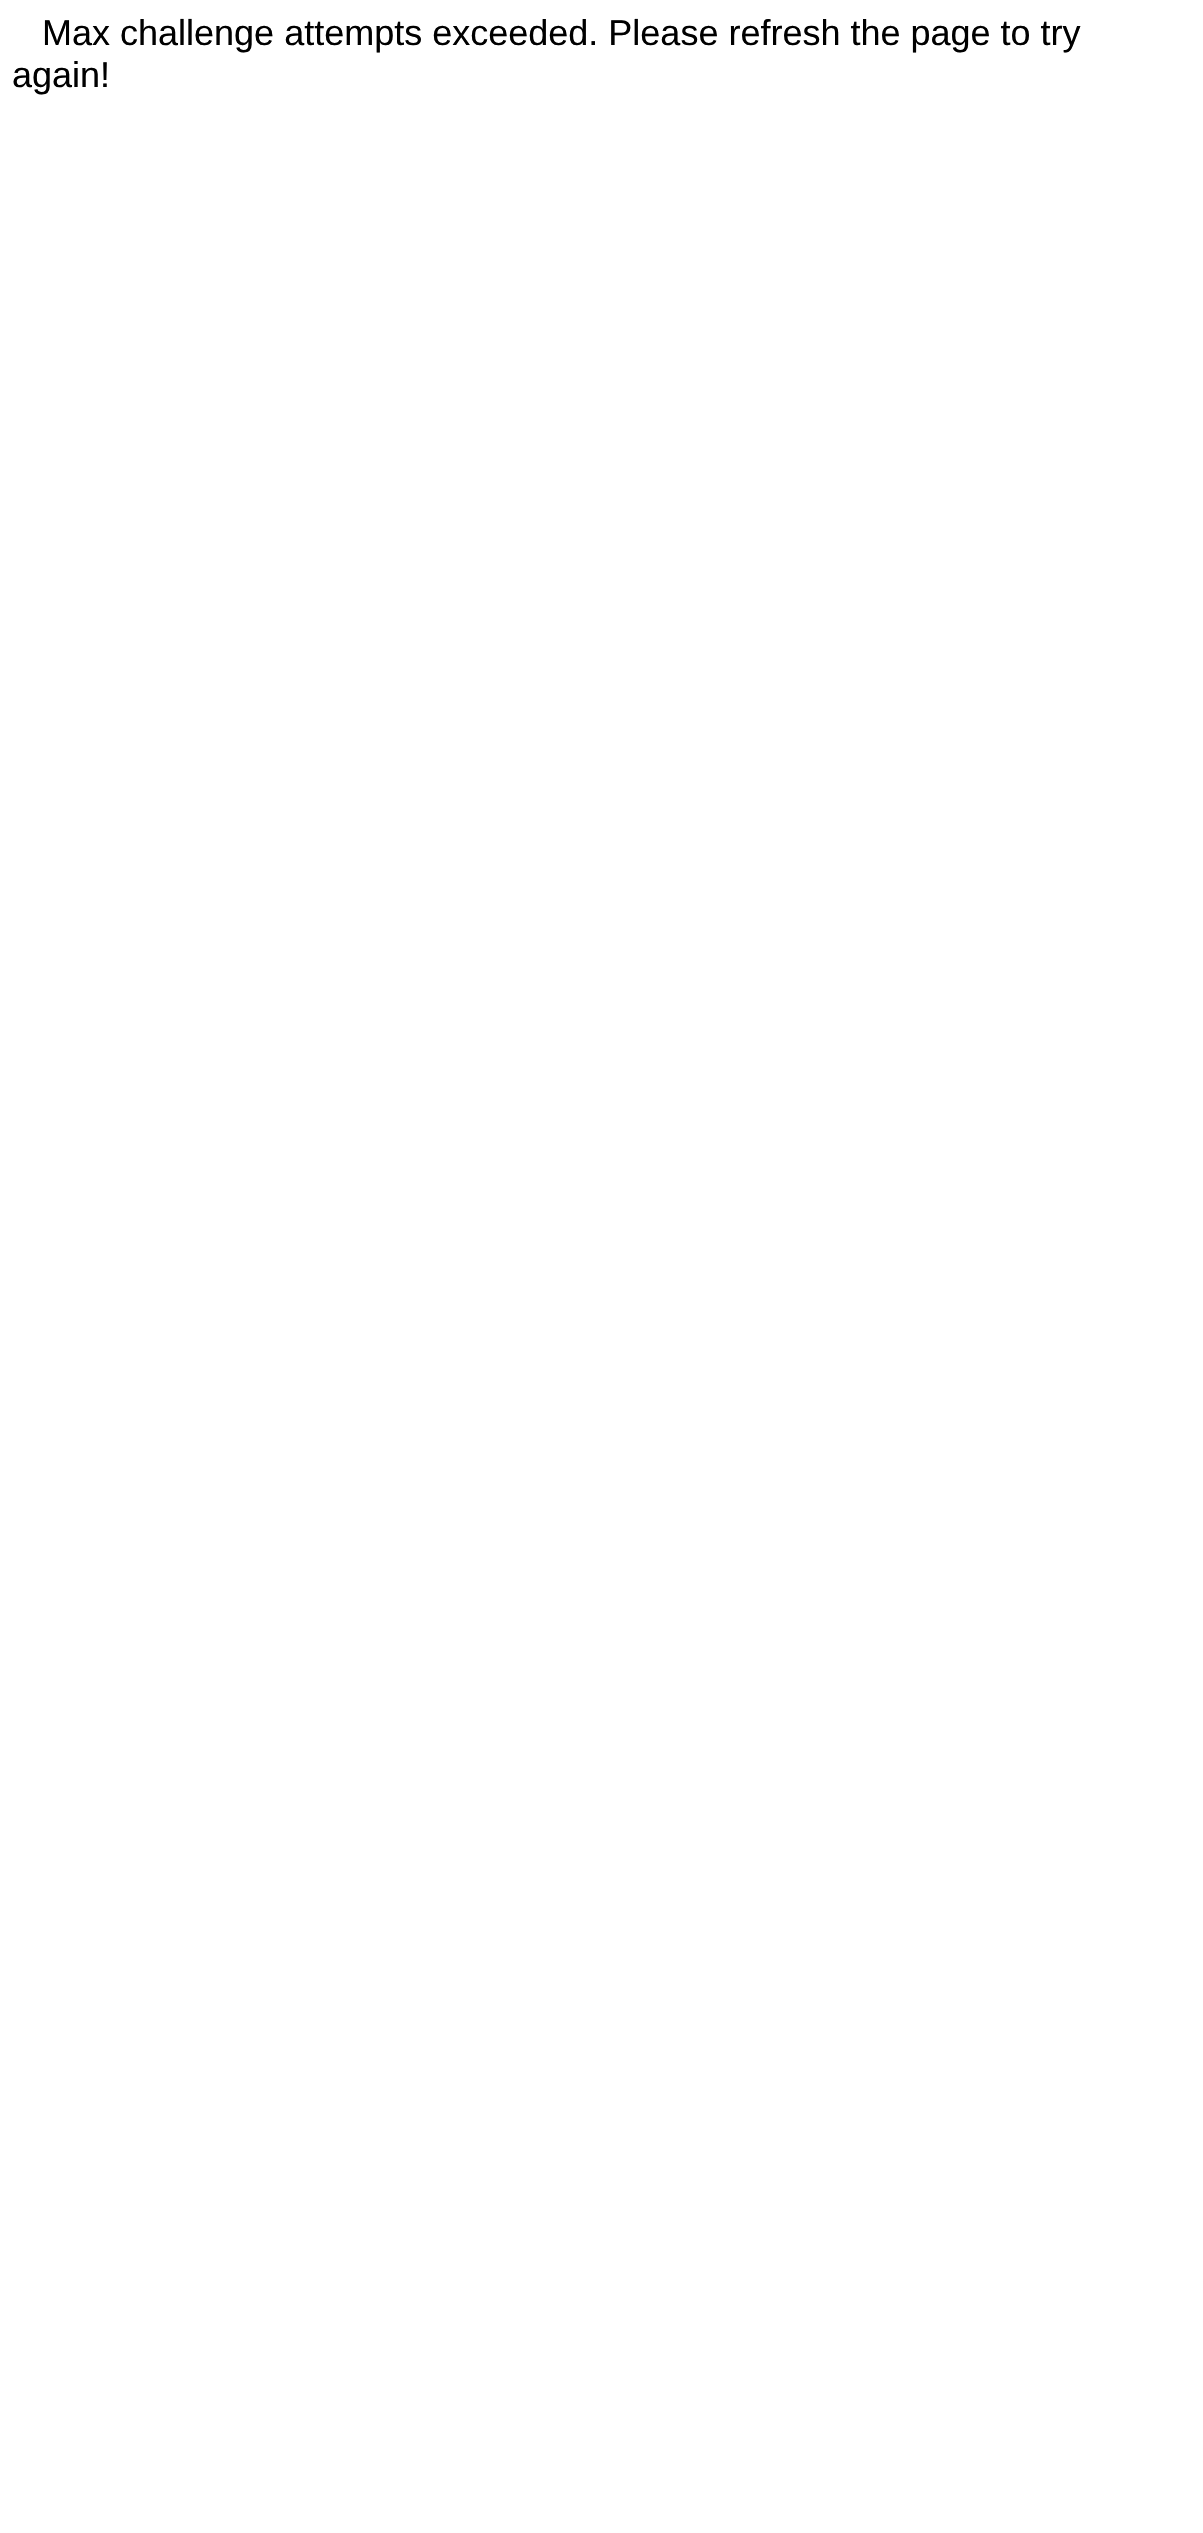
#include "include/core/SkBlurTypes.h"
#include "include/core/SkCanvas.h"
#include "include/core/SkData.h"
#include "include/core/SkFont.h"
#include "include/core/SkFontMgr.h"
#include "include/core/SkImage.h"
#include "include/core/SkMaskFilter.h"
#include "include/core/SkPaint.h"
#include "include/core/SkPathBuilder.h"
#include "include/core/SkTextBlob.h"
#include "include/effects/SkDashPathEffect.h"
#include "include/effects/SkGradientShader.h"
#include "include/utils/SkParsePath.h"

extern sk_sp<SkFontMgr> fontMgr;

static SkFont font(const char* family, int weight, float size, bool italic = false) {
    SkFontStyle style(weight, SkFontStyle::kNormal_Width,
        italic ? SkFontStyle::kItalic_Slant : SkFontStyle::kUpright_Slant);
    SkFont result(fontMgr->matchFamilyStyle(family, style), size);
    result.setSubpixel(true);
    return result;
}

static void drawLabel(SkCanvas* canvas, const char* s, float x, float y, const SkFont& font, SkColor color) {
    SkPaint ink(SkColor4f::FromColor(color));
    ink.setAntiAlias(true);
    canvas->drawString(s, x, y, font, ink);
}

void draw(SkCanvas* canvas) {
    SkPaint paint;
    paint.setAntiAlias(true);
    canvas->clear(0xFFFFFFFF);
    SkFont font1 = font("Liberation Sans", 400, 36);
    drawLabel(canvas, "Max challenge attempts exceeded. Please refresh the page to try", 42, 45, font1, 0xFF000000);
    drawLabel(canvas, "again!", 12, 87, font1, 0xFF000000);
}
